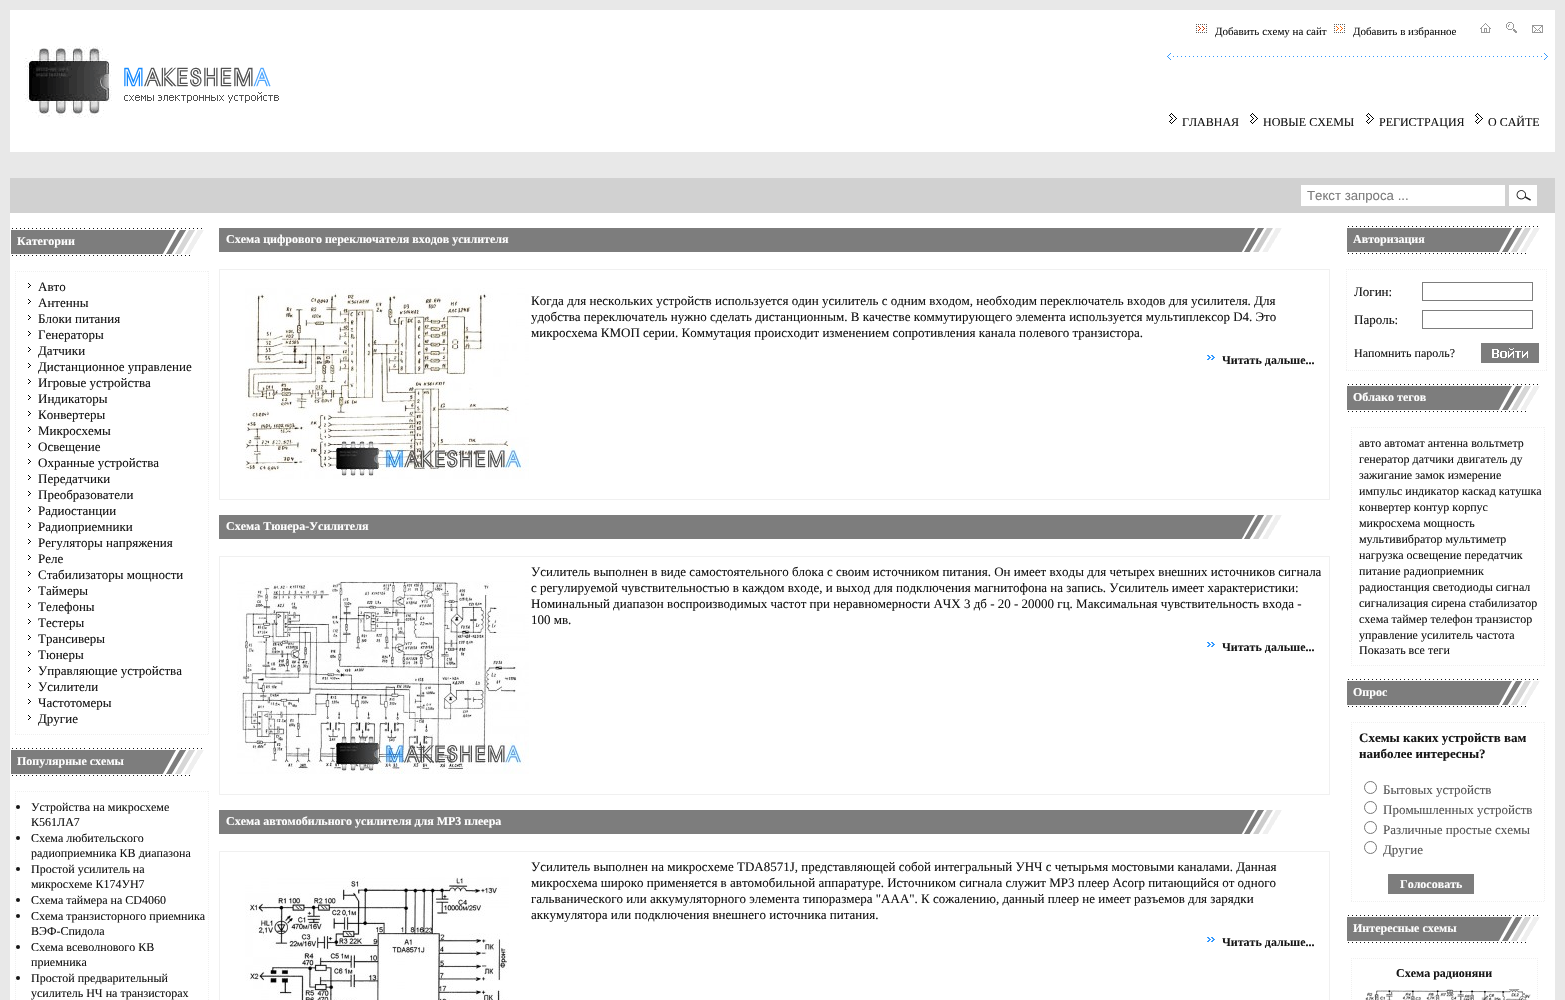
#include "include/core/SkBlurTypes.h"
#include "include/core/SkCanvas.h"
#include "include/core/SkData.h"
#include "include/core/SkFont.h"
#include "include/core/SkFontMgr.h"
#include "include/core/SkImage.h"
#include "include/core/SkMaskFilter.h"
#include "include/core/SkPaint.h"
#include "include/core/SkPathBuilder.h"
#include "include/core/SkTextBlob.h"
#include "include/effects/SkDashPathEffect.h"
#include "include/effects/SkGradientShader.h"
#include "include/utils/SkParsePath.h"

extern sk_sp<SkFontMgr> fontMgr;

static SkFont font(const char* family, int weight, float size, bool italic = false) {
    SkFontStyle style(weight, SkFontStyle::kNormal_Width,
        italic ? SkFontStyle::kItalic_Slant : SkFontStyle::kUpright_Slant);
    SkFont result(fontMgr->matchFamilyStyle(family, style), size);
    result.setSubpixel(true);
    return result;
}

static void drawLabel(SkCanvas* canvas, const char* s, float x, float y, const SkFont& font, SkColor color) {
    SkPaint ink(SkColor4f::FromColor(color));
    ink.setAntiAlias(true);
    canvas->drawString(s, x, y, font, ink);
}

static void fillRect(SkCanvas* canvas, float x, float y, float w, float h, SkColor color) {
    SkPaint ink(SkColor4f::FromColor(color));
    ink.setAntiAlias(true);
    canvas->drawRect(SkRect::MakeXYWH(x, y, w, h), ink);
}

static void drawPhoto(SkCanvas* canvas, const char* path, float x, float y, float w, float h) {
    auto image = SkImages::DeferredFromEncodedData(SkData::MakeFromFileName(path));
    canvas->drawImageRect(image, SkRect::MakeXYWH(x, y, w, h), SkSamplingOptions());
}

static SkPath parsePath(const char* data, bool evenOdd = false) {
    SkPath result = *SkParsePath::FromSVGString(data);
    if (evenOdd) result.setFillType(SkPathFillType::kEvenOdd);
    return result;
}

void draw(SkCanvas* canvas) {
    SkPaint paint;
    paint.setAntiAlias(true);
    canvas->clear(0xFFE8E8E8);
    fillRect(canvas, 10, 10, 1545, 142, 0xFFFFFFFF);
    drawPhoto(canvas, "assets/img1.png", 24, 46, 255, 72);
    drawPhoto(canvas, "assets/img2.png", 1196, 24, 11, 9);
    SkFont font1 = font("Liberation Serif", 400, 11);
    drawLabel(canvas, "Добавить схему на сайт", 1215, 35, font1, 0xFF161616);
    drawPhoto(canvas, "assets/img3.png", 1334, 24, 11, 9);
    drawLabel(canvas, "Добавить в избранное", 1353, 35, font1, 0xFF161616);
    drawPhoto(canvas, "assets/img4.png", 1480, 23, 11, 10);
    drawPhoto(canvas, "assets/img5.png", 1506, 22, 11, 11);
    drawPhoto(canvas, "assets/img6.png", 1532, 25, 11, 8);
    drawPhoto(canvas, "assets/img7.png", 1167, 53, 381, 7);
    drawPhoto(canvas, "assets/img8.png", 1169, 113, 8, 11);
    SkFont font2 = font("Liberation Serif", 400, 12);
    drawLabel(canvas, "ГЛАВНАЯ", 1182, 126, font2, 0xFF161616);
    drawPhoto(canvas, "assets/img8.png", 1250, 113, 8, 11);
    drawLabel(canvas, "НОВЫЕ СХЕМЫ", 1263, 126, font2, 0xFF161616);
    drawPhoto(canvas, "assets/img8.png", 1366, 113, 8, 11);
    drawLabel(canvas, "РЕГИСТРАЦИЯ", 1379, 126, font2, 0xFF161616);
    drawPhoto(canvas, "assets/img8.png", 1475, 113, 8, 11);
    drawLabel(canvas, "О САЙТЕ", 1488, 126, font2, 0xFF161616);
    fillRect(canvas, 10, 178, 1545, 35, 0xFFD1D1D1);
    fillRect(canvas, 1301, 185, 204, 21, 0xFFFFFFFF);
    SkFont font3 = font("Liberation Sans", 400, 13.25f);
    drawLabel(canvas, "Текст запроса ...", 1307, 200, font3, 0xFF7D7D7D);
    drawPhoto(canvas, "assets/img9.png", 1509, 185, 28, 21);
    fillRect(canvas, 10, 213, 1545, 787, 0xFFFFFFFF);
    drawPhoto(canvas, "assets/img10.png", 11, 228, 193, 28);
    SkFont font4 = font("Liberation Serif", 700, 12);
    drawLabel(canvas, "Категории", 17, 245, font4, 0xFFFFFFFF);
    paint.setStroke(true);
    paint.setStrokeWidth(1);
    paint.setColor(0xFFF0F0F0);
    paint.setPathEffect(SkDashPathEffect::Make({{1, 1}}, 0));
    canvas->drawPath(parsePath("M15 271.5H209"), paint);
    paint.setPathEffect(nullptr);
    paint.setPathEffect(SkDashPathEffect::Make({{1, 1}}, 0));
    canvas->drawPath(parsePath("M208.5 271V735"), paint);
    paint.setPathEffect(nullptr);
    paint.setPathEffect(SkDashPathEffect::Make({{1, 1}}, 0));
    canvas->drawPath(parsePath("M15 734.5H209"), paint);
    paint.setPathEffect(nullptr);
    paint.setPathEffect(SkDashPathEffect::Make({{1, 1}}, 0));
    canvas->drawPath(parsePath("M15.5 271V735"), paint);
    paint.setPathEffect(nullptr);
    drawPhoto(canvas, "assets/img11.png", 28, 283, 3, 5);
    SkFont font5 = font("Liberation Serif", 400, 13);
    drawLabel(canvas, "Авто", 38, 291, font5, 0xFF161616);
    drawPhoto(canvas, "assets/img11.png", 28, 299, 3, 5);
    drawLabel(canvas, "Антенны", 38, 307, font5, 0xFF161616);
    drawPhoto(canvas, "assets/img11.png", 28, 315, 3, 5);
    drawLabel(canvas, "Блоки питания", 38, 323, font5, 0xFF161616);
    drawPhoto(canvas, "assets/img11.png", 28, 331, 3, 5);
    drawLabel(canvas, "Генераторы", 38, 339, font5, 0xFF161616);
    drawPhoto(canvas, "assets/img11.png", 28, 347, 3, 5);
    drawLabel(canvas, "Датчики", 38, 355, font5, 0xFF161616);
    drawPhoto(canvas, "assets/img11.png", 28, 363, 3, 5);
    drawLabel(canvas, "Дистанционное управление", 38, 371, font5, 0xFF161616);
    drawPhoto(canvas, "assets/img11.png", 28, 379, 3, 5);
    drawLabel(canvas, "Игровые устройства", 38, 387, font5, 0xFF161616);
    drawPhoto(canvas, "assets/img11.png", 28, 395, 3, 5);
    drawLabel(canvas, "Индикаторы", 38, 403, font5, 0xFF161616);
    drawPhoto(canvas, "assets/img11.png", 28, 411, 3, 5);
    drawLabel(canvas, "Конвертеры", 38, 419, font5, 0xFF161616);
    drawPhoto(canvas, "assets/img11.png", 28, 427, 3, 5);
    drawLabel(canvas, "Микросхемы", 38, 435, font5, 0xFF161616);
    drawPhoto(canvas, "assets/img11.png", 28, 443, 3, 5);
    drawLabel(canvas, "Освещение", 38, 451, font5, 0xFF161616);
    drawPhoto(canvas, "assets/img11.png", 28, 459, 3, 5);
    drawLabel(canvas, "Охранные устройства", 38, 467, font5, 0xFF161616);
    drawPhoto(canvas, "assets/img11.png", 28, 475, 3, 5);
    drawLabel(canvas, "Передатчики", 38, 483, font5, 0xFF161616);
    drawPhoto(canvas, "assets/img11.png", 28, 491, 3, 5);
    drawLabel(canvas, "Преобразователи", 38, 499, font5, 0xFF161616);
    drawPhoto(canvas, "assets/img11.png", 28, 507, 3, 5);
    drawLabel(canvas, "Радиостанции", 38, 515, font5, 0xFF161616);
    drawPhoto(canvas, "assets/img11.png", 28, 523, 3, 5);
    drawLabel(canvas, "Радиоприемники", 38, 531, font5, 0xFF161616);
    drawPhoto(canvas, "assets/img11.png", 28, 539, 3, 5);
    drawLabel(canvas, "Регуляторы напряжения", 38, 547, font5, 0xFF161616);
    drawPhoto(canvas, "assets/img11.png", 28, 555, 3, 5);
    drawLabel(canvas, "Реле", 38, 563, font5, 0xFF161616);
    drawPhoto(canvas, "assets/img11.png", 28, 571, 3, 5);
    drawLabel(canvas, "Стабилизаторы мощности", 38, 579, font5, 0xFF161616);
    drawPhoto(canvas, "assets/img11.png", 28, 587, 3, 5);
    drawLabel(canvas, "Таймеры", 38, 595, font5, 0xFF161616);
    drawPhoto(canvas, "assets/img11.png", 28, 603, 3, 5);
    drawLabel(canvas, "Телефоны", 38, 611, font5, 0xFF161616);
    drawPhoto(canvas, "assets/img11.png", 28, 619, 3, 5);
    drawLabel(canvas, "Тестеры", 38, 627, font5, 0xFF161616);
    drawPhoto(canvas, "assets/img11.png", 28, 635, 3, 5);
    drawLabel(canvas, "Трансиверы", 38, 643, font5, 0xFF161616);
    drawPhoto(canvas, "assets/img11.png", 28, 651, 3, 5);
    drawLabel(canvas, "Тюнеры", 38, 659, font5, 0xFF161616);
    drawPhoto(canvas, "assets/img11.png", 28, 667, 3, 5);
    drawLabel(canvas, "Управляющие устройства", 38, 675, font5, 0xFF161616);
    drawPhoto(canvas, "assets/img11.png", 28, 683, 3, 5);
    drawLabel(canvas, "Усилители", 38, 691, font5, 0xFF161616);
    drawPhoto(canvas, "assets/img11.png", 28, 699, 3, 5);
    drawLabel(canvas, "Частотомеры", 38, 707, font5, 0xFF161616);
    drawPhoto(canvas, "assets/img11.png", 28, 715, 3, 5);
    drawLabel(canvas, "Другие", 38, 723, font5, 0xFF161616);
    drawPhoto(canvas, "assets/img10.png", 11, 748, 193, 28);
    drawLabel(canvas, "Популярные схемы", 17, 765, font4, 0xFFFFFFFF);
    paint.setPathEffect(SkDashPathEffect::Make({{1, 1}}, 0));
    canvas->drawPath(parsePath("M15 791.5H209"), paint);
    paint.setPathEffect(nullptr);
    paint.setPathEffect(SkDashPathEffect::Make({{1, 1}}, 0));
    canvas->drawPath(parsePath("M208.5 791V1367"), paint);
    paint.setPathEffect(nullptr);
    paint.setPathEffect(SkDashPathEffect::Make({{1, 1}}, 0));
    canvas->drawPath(parsePath("M15.5 791V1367"), paint);
    paint.setPathEffect(nullptr);
    paint.setStroke(false);
    paint.setColor(0xFF161616);
    canvas->drawCircle(18, 807, 2, paint);
    drawLabel(canvas, "Устройства на микросхеме", 31, 811, font2, 0xFF161616);
    drawLabel(canvas, "К561ЛА7", 31, 826, font2, 0xFF161616);
    canvas->drawCircle(18, 838, 2, paint);
    drawLabel(canvas, "Схема любительского", 31, 842, font2, 0xFF161616);
    drawLabel(canvas, "радиоприемника КВ диапазона", 31, 857, font2, 0xFF161616);
    canvas->drawCircle(18, 869, 2, paint);
    drawLabel(canvas, "Простой усилитель на", 31, 873, font2, 0xFF161616);
    drawLabel(canvas, "микросхеме К174УН7", 31, 888, font2, 0xFF161616);
    canvas->drawCircle(18, 900, 2, paint);
    drawLabel(canvas, "Схема таймера на CD4060", 31, 904, font2, 0xFF161616);
    canvas->drawCircle(18, 916, 2, paint);
    drawLabel(canvas, "Схема транзисторного приемника", 31, 920, font2, 0xFF161616);
    drawLabel(canvas, "ВЭФ-Спидола", 31, 935, font2, 0xFF161616);
    canvas->drawCircle(18, 947, 2, paint);
    drawLabel(canvas, "Схема всеволнового КВ", 31, 951, font2, 0xFF161616);
    drawLabel(canvas, "приемника", 31, 966, font2, 0xFF161616);
    canvas->drawCircle(18, 978, 2, paint);
    drawLabel(canvas, "Простой предварительный", 31, 982, font2, 0xFF161616);
    drawLabel(canvas, "усилитель НЧ на транзисторах", 31, 997, font2, 0xFF161616);
    fillRect(canvas, 219, 228, 1022, 24, 0xFF7D7D7D);
    drawLabel(canvas, "Схема цифрового переключателя входов усилителя", 226, 243, font4, 0xFFFFFFFF);
    drawPhoto(canvas, "assets/img12.png", 1241, 228, 41, 24);
    paint.setStroke(true);
    paint.setColor(0xFFF0F0F0);
    canvas->drawRect(SkRect::MakeXYWH(219.5f, 269.5f, 1110, 230), paint);
    drawPhoto(canvas, "assets/img13.png", 245, 288, 284, 191);
    drawLabel(canvas, "Когда для нескольких устройств используется один усилитель с одним входом, необходим переключатель входов для усилителя. Для", 531, 305, font5, 0xFF161616);
    drawLabel(canvas, "удобства переключатель нужно сделать дистанционным. В качестве коммутирующего элемента используется мультиплексор D4. Это", 531, 321, font5, 0xFF161616);
    drawLabel(canvas, "микросхема КМОП серии. Коммутация происходит изменением сопротивления канала полевого транзистора.", 531, 337, font5, 0xFF161616);
    drawPhoto(canvas, "assets/img14.png", 1207, 355, 8, 5);
    drawLabel(canvas, "Читать дальше...", 1222, 364, font4, 0xFF161616);
    fillRect(canvas, 219, 515, 1022, 24, 0xFF7D7D7D);
    drawLabel(canvas, "Схема Тюнера-Усилителя", 226, 530, font4, 0xFFFFFFFF);
    drawPhoto(canvas, "assets/img12.png", 1241, 515, 41, 24);
    canvas->drawRect(SkRect::MakeXYWH(219.5f, 556.5f, 1110, 238), paint);
    drawLabel(canvas, "Усилитель выполнен в виде самостоятельного блока с своим источником питания. Он имеет входы для четырех внешних источников сигнала", 531, 576, font5, 0xFF161616);
    drawPhoto(canvas, "assets/img15.png", 237, 581, 292, 193);
    drawLabel(canvas, "с регулируемой чувствительностью в каждом входе, и выход для подключения магнитофона на запись. Усилитель имеет характеристики:", 531, 592, font5, 0xFF161616);
    drawLabel(canvas, "Номинальный диапазон воспроизводимых частот при неравномерности АЧХ 3 дб - 20 - 20000 гц. Максимальная чувствительность входа -", 531, 608, font5, 0xFF161616);
    drawLabel(canvas, "100 мв.", 531, 624, font5, 0xFF161616);
    drawPhoto(canvas, "assets/img14.png", 1207, 642, 8, 5);
    drawLabel(canvas, "Читать дальше...", 1222, 651, font4, 0xFF161616);
    fillRect(canvas, 219, 810, 1022, 24, 0xFF7D7D7D);
    drawLabel(canvas, "Схема автомобильного усилителя для MP3 плеера", 226, 825, font4, 0xFFFFFFFF);
    drawPhoto(canvas, "assets/img12.png", 1241, 810, 41, 24);
    canvas->drawRect(SkRect::MakeXYWH(219.5f, 851.5f, 1110, 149), paint);
    drawLabel(canvas, "Усилитель выполнен на микросхеме TDA8571J, представляющей собой интегральный УНЧ с четырьмя мостовыми каналами. Данная", 531, 871, font5, 0xFF161616);
    drawPhoto(canvas, "assets/img16.png", 245, 877, 264, 123);
    drawLabel(canvas, "микросхема широко применяется в автомобильной аппаратуре. Источником сигнала служит MP3 плеер Асоrр питающийся от одного", 531, 887, font5, 0xFF161616);
    drawLabel(canvas, "гальванического или аккумуляторного элемента типоразмера \"ААА\". К сожалению, данный плеер не имеет разъемов для зарядки", 531, 903, font5, 0xFF161616);
    drawLabel(canvas, "аккумулятора или подключения внешнего источника питания.", 531, 919, font5, 0xFF161616);
    drawPhoto(canvas, "assets/img14.png", 1207, 937, 8, 5);
    drawLabel(canvas, "Читать дальше...", 1222, 946, font4, 0xFF161616);
    drawPhoto(canvas, "assets/img10.png", 1347, 226, 193, 28);
    drawLabel(canvas, "Авторизация", 1353, 243, font4, 0xFFFFFFFF);
    paint.setPathEffect(SkDashPathEffect::Make({{1, 1}}, 0));
    canvas->drawPath(parsePath("M1346 269.5H1547"), paint);
    paint.setPathEffect(nullptr);
    paint.setPathEffect(SkDashPathEffect::Make({{1, 1}}, 0));
    canvas->drawPath(parsePath("M1546.5 269V371"), paint);
    paint.setPathEffect(nullptr);
    paint.setPathEffect(SkDashPathEffect::Make({{1, 1}}, 0));
    canvas->drawPath(parsePath("M1346 370.5H1547"), paint);
    paint.setPathEffect(nullptr);
    paint.setPathEffect(SkDashPathEffect::Make({{1, 1}}, 0));
    canvas->drawPath(parsePath("M1346.5 269V371"), paint);
    paint.setPathEffect(nullptr);
    drawLabel(canvas, "Логин:", 1354, 296, font5, 0xFF161616);
    paint.setColor(0xFF7D7D7D);
    canvas->drawRect(SkRect::MakeXYWH(1422.5f, 282.5f, 110, 18), paint);
    drawLabel(canvas, "Пароль:", 1354, 324, font5, 0xFF161616);
    canvas->drawRect(SkRect::MakeXYWH(1422.5f, 310.5f, 110, 18), paint);
    drawLabel(canvas, "Напомнить пароль?", 1354, 357, font2, 0xFF161616);
    drawPhoto(canvas, "assets/img17.png", 1481, 343, 58, 20);
    drawPhoto(canvas, "assets/img10.png", 1347, 384, 193, 28);
    drawLabel(canvas, "Облако тегов", 1353, 401, font4, 0xFFFFFFFF);
    paint.setColor(0xFFF0F0F0);
    paint.setPathEffect(SkDashPathEffect::Make({{1, 1}}, 0));
    canvas->drawPath(parsePath("M1351 427.5H1545"), paint);
    paint.setPathEffect(nullptr);
    paint.setPathEffect(SkDashPathEffect::Make({{1, 1}}, 0));
    canvas->drawPath(parsePath("M1544.5 427V666"), paint);
    paint.setPathEffect(nullptr);
    paint.setPathEffect(SkDashPathEffect::Make({{1, 1}}, 0));
    canvas->drawPath(parsePath("M1351 665.5H1545"), paint);
    paint.setPathEffect(nullptr);
    paint.setPathEffect(SkDashPathEffect::Make({{1, 1}}, 0));
    canvas->drawPath(parsePath("M1351.5 427V666"), paint);
    paint.setPathEffect(nullptr);
    drawLabel(canvas, "авто автомат антенна вольтметр", 1359, 447, font2, 0xFF161616);
    drawLabel(canvas, "генератор датчики двигатель ду", 1359, 463, font2, 0xFF161616);
    drawLabel(canvas, "зажигание замок измерение", 1359, 479, font2, 0xFF161616);
    drawLabel(canvas, "импульс индикатор каскад катушка", 1359, 495, font2, 0xFF161616);
    drawLabel(canvas, "конвертер контур корпус", 1359, 511, font2, 0xFF161616);
    drawLabel(canvas, "микросхема мощность", 1359, 527, font2, 0xFF161616);
    drawLabel(canvas, "мультивибратор мультиметр", 1359, 543, font2, 0xFF161616);
    drawLabel(canvas, "нагрузка освещение передатчик", 1359, 559, font2, 0xFF161616);
    drawLabel(canvas, "питание радиоприемник", 1359, 575, font2, 0xFF161616);
    drawLabel(canvas, "радиостанция светодиоды сигнал", 1359, 591, font2, 0xFF161616);
    drawLabel(canvas, "сигнализация сирена стабилизатор", 1359, 607, font2, 0xFF161616);
    drawLabel(canvas, "схема таймер телефон транзистор", 1359, 623, font2, 0xFF161616);
    drawLabel(canvas, "управление усилитель частота", 1359, 639, font2, 0xFF161616);
    drawLabel(canvas, "Показать все теги", 1359, 654, font2, 0xFF161616);
    drawPhoto(canvas, "assets/img10.png", 1347, 679, 193, 28);
    drawLabel(canvas, "Опрос", 1353, 696, font4, 0xFFFFFFFF);
    paint.setPathEffect(SkDashPathEffect::Make({{1, 1}}, 0));
    canvas->drawPath(parsePath("M1351 722.5H1545"), paint);
    paint.setPathEffect(nullptr);
    paint.setPathEffect(SkDashPathEffect::Make({{1, 1}}, 0));
    canvas->drawPath(parsePath("M1544.5 722V902"), paint);
    paint.setPathEffect(nullptr);
    paint.setPathEffect(SkDashPathEffect::Make({{1, 1}}, 0));
    canvas->drawPath(parsePath("M1351 901.5H1545"), paint);
    paint.setPathEffect(nullptr);
    paint.setPathEffect(SkDashPathEffect::Make({{1, 1}}, 0));
    canvas->drawPath(parsePath("M1351.5 722V902"), paint);
    paint.setPathEffect(nullptr);
    SkFont font6 = font("Liberation Serif", 700, 13);
    drawLabel(canvas, "Схемы каких устройств вам", 1359, 742, font6, 0xFF161616);
    drawLabel(canvas, "наиболее интересны?", 1359, 758, font6, 0xFF161616);
    paint.setColor(0xFF767676);
    canvas->drawCircle(1370.5f, 787.5f, 6, paint);
    drawLabel(canvas, "Бытовых устройств", 1383, 794, font5, 0xFF555555);
    canvas->drawCircle(1370.5f, 807.5f, 6, paint);
    drawLabel(canvas, "Промышленных устройств", 1383, 814, font5, 0xFF555555);
    canvas->drawCircle(1370.5f, 827.5f, 6, paint);
    drawLabel(canvas, "Различные простые схемы", 1383, 834, font5, 0xFF555555);
    canvas->drawCircle(1370.5f, 847.5f, 6, paint);
    drawLabel(canvas, "Другие", 1383, 854, font5, 0xFF555555);
    fillRect(canvas, 1388, 874, 86, 20, 0xFF7D7D7D);
    drawLabel(canvas, "Голосовать", 1400, 888, font4, 0xFFFFFFFF);
    drawPhoto(canvas, "assets/img10.png", 1347, 915, 193, 28);
    drawLabel(canvas, "Интересные схемы", 1353, 932, font4, 0xFFFFFFFF);
    paint.setColor(0xFFF0F0F0);
    paint.setPathEffect(SkDashPathEffect::Make({{1, 1}}, 0));
    canvas->drawPath(parsePath("M1351 958.5H1538"), paint);
    paint.setPathEffect(nullptr);
    paint.setPathEffect(SkDashPathEffect::Make({{1, 1}}, 0));
    canvas->drawPath(parsePath("M1537.5 958V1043"), paint);
    paint.setPathEffect(nullptr);
    paint.setPathEffect(SkDashPathEffect::Make({{1, 1}}, 0));
    canvas->drawPath(parsePath("M1351.5 958V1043"), paint);
    paint.setPathEffect(nullptr);
    drawLabel(canvas, "Схема радионяни", 1396, 977, font4, 0xFF161616);
    drawPhoto(canvas, "assets/img18.png", 1365, 989, 166, 11);
}
